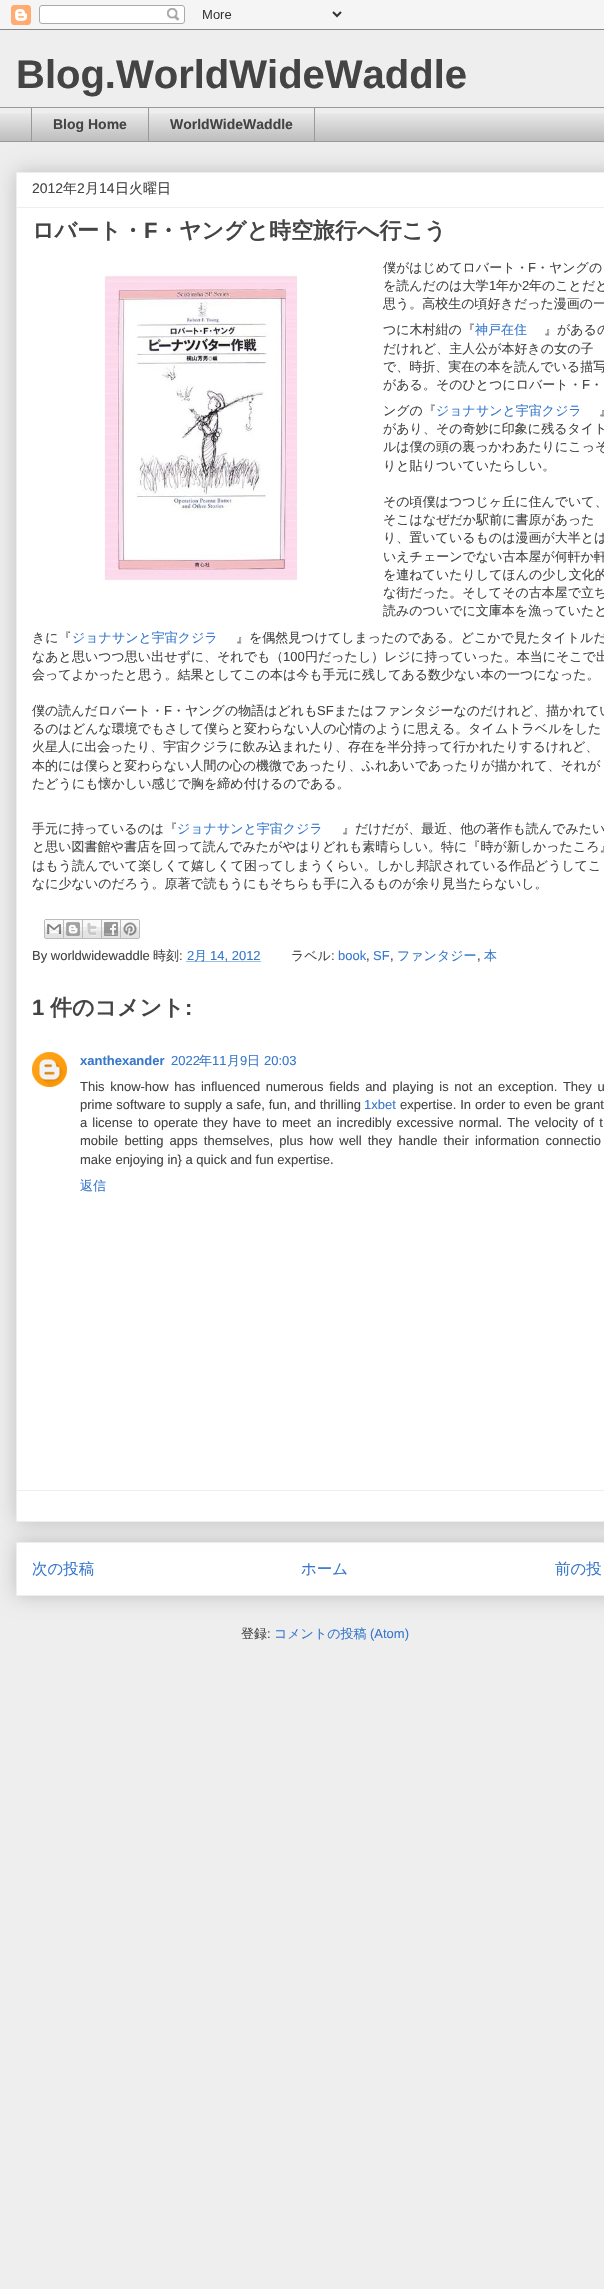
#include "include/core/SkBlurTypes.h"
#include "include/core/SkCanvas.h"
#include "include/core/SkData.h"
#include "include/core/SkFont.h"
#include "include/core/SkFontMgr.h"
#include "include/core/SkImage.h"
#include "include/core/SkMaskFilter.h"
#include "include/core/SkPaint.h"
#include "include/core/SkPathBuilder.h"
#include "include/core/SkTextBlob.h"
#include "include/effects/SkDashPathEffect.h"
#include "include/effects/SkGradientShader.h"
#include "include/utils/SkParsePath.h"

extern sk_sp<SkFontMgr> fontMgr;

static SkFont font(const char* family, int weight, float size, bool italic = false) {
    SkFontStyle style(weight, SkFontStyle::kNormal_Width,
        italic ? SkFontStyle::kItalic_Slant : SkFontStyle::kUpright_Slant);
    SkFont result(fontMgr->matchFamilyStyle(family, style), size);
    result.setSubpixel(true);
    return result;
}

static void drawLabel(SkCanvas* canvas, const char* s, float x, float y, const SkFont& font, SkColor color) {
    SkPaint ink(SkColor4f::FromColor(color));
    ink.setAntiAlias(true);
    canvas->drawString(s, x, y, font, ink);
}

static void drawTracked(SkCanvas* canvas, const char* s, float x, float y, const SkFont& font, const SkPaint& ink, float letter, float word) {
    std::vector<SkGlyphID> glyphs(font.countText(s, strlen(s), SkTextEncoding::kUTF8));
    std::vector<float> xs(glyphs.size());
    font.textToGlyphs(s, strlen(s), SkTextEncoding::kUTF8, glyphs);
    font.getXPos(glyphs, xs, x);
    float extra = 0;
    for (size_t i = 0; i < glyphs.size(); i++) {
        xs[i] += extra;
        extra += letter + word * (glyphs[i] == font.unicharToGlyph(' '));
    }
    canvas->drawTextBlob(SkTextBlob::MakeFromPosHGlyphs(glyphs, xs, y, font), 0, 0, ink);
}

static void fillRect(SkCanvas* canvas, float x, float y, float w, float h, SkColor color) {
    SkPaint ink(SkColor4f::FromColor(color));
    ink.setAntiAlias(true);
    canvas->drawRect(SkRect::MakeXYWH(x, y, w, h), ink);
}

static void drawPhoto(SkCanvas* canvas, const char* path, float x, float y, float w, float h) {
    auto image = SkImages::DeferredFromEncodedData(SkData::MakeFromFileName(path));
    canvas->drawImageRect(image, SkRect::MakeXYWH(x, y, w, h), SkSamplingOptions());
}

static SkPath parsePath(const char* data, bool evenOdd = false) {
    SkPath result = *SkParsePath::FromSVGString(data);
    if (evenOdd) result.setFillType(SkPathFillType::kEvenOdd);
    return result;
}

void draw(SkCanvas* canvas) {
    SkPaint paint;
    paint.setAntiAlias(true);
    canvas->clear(0xFFEEEEEE);
    drawPhoto(canvas, "assets/img1.png", 0, 0, 604, 30);
    SkFont font1 = font("Liberation Sans", 700, 40);
    drawLabel(canvas, "Blog.WorldWideWaddle", 16, 88, font1, 0xFF444444);
    drawPhoto(canvas, "assets/img2.png", 0, 113, 604, 28);
    fillRect(canvas, 0, 107, 604, 1, 0xFF999999);
    fillRect(canvas, 31, 107, 1, 35, 0xFF999999);
    SkFont font2 = font("Liberation Sans", 700, 14);
    drawLabel(canvas, "Blog Home", 53, 129, font2, 0xFF444444);
    paint.setStroke(true);
    paint.setStrokeWidth(1);
    paint.setColor(0xFF999999);
    canvas->drawRect(SkRect::MakeXYWH(148.5f, 107.5f, 166, 34), paint);
    drawLabel(canvas, "WorldWideWaddle", 170, 129, font2, 0xFF444444);
    fillRect(canvas, 0, 141, 604, 1, 0xFF999999);
    paint.setStroke(false);
    paint.setColor(0x33000000);
    paint.setMaskFilter(SkMaskFilter::MakeBlur(kNormal_SkBlurStyle, 10));
    canvas->drawRect(SkRect::MakeXYWH(16, 1542, 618, 54), paint);
    paint.setMaskFilter(nullptr);
    paint.setColor(0xFFFFFFFF);
    canvas->drawRect(SkRect::MakeXYWH(16.5f, 1542.5f, 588, 53), paint);
    paint.setStroke(true);
    paint.setColor(0xFFEEEEEE);
    canvas->drawRect(SkRect::MakeXYWH(16.5f, 1542.5f, 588, 53), paint);
    paint.setStroke(false);
    paint.setColor(0x33000000);
    paint.setMaskFilter(SkMaskFilter::MakeBlur(kNormal_SkBlurStyle, 10));
    canvas->drawRect(SkRect::MakeXYWH(16, 172, 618, 1350), paint);
    paint.setMaskFilter(nullptr);
    paint.setColor(0xFFFFFFFF);
    canvas->drawRect(SkRect::MakeXYWH(16.5f, 172.5f, 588, 1349), paint);
    paint.setStroke(true);
    paint.setColor(0xFFEEEEEE);
    canvas->drawRect(SkRect::MakeXYWH(16.5f, 172.5f, 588, 1349), paint);
    SkFont font3 = font("Liberation Sans", 400, 14);
    drawLabel(canvas, "2012", 32, 193, font3, 0xFF444444);
    SkFont font4 = font("WenQuanYi Zen Hei", 500, 14);
    drawLabel(canvas, "年", 63, 193, font4, 0xFF444444);
    drawLabel(canvas, "2", 77, 193, font3, 0xFF444444);
    drawLabel(canvas, "月", 85, 193, font4, 0xFF444444);
    drawLabel(canvas, "14", 99, 193, font3, 0xFF444444);
    drawLabel(canvas, "日火曜日", 115, 193, font4, 0xFF444444);
    fillRect(canvas, 17, 207, 587, 1, 0xFFEEEEEE);
    SkFont font5 = font("WenQuanYi Zen Hei", 700, 22);
    drawLabel(canvas, "ロバート・", 32, 238, font5, 0xFF444444);
    SkFont font6 = font("Liberation Sans", 700, 22);
    drawLabel(canvas, "F", 144, 238, font6, 0xFF444444);
    drawLabel(canvas, "・ヤングと時空旅行へ行こう", 157, 238, font5, 0xFF444444);
    SkFont font7 = font("WenQuanYi Zen Hei", 500, 13);
    drawLabel(canvas, "僕がはじめてロバート・", 383, 272, font7, 0xFF444444);
    SkFont font8 = font("Liberation Sans", 400, 13);
    drawLabel(canvas, "F", 528, 272, font8, 0xFF444444);
    drawLabel(canvas, "・ヤングの", 536, 272, font7, 0xFF444444);
    drawPhoto(canvas, "assets/img3.png", 103, 274, 194, 307);
    drawLabel(canvas, "を読んだのは大学", 383, 290, font7, 0xFF444444);
    drawLabel(canvas, "1", 489, 290, font8, 0xFF444444);
    drawLabel(canvas, "年か", 496, 290, font7, 0xFF444444);
    drawLabel(canvas, "2", 522, 290, font8, 0xFF444444);
    drawLabel(canvas, "年のことだと", 529, 290, font7, 0xFF444444);
    drawLabel(canvas, "思う。高校生の頃好きだった漫画の一", 383, 308, font7, 0xFF444444);
    drawLabel(canvas, "つに木村紺の『", 383, 334, font7, 0xFF444444);
    drawLabel(canvas, "神戸在住", 475, 334, font7, 0xFF3778CD);
    drawLabel(canvas, "』があるの", 544, 334, font7, 0xFF444444);
    drawLabel(canvas, "だけれど、主人公が本好きの女の子", 383, 353, font7, 0xFF444444);
    drawLabel(canvas, "で、時折、実在の本を読んでいる描写", 383, 371, font7, 0xFF444444);
    drawLabel(canvas, "がある。そのひとつにロバート・", 383, 389, font7, 0xFF444444);
    drawLabel(canvas, "F", 582, 389, font8, 0xFF444444);
    drawLabel(canvas, "・", 590, 389, font7, 0xFF444444);
    drawLabel(canvas, "ングの『", 383, 415, font7, 0xFF444444);
    drawLabel(canvas, "ジョナサンと宇宙クジラ", 436, 415, font7, 0xFF3778CD);
    drawLabel(canvas, "』", 599, 415, font7, 0xFF444444);
    drawLabel(canvas, "があり、その奇妙に印象に残るタイト", 383, 433, font7, 0xFF444444);
    drawLabel(canvas, "ルは僕の頭の裏っかわあたりにこっそ", 383, 451, font7, 0xFF444444);
    drawLabel(canvas, "りと貼りついていたらしい。", 383, 470, font7, 0xFF444444);
    drawLabel(canvas, "その頃僕はつつじヶ丘に住んでいて、", 383, 506, font7, 0xFF444444);
    drawLabel(canvas, "そこはなぜだか駅前に書原があった", 383, 524, font7, 0xFF444444);
    drawLabel(canvas, "り、置いているものは漫画が大半とは", 383, 542, font7, 0xFF444444);
    drawLabel(canvas, "いえチェーンでない古本屋が何軒か軒", 383, 561, font7, 0xFF444444);
    drawLabel(canvas, "を連ねていたりしてほんの少し文化的", 383, 579, font7, 0xFF444444);
    drawLabel(canvas, "な街だった。そしてその古本屋で立ち", 383, 597, font7, 0xFF444444);
    drawLabel(canvas, "読みのついでに文庫本を漁っていたと", 383, 615, font7, 0xFF444444);
    drawLabel(canvas, "きに『", 32, 642, font7, 0xFF444444);
    drawLabel(canvas, "ジョナサンと宇宙クジラ", 72, 642, font7, 0xFF3778CD);
    drawLabel(canvas, "』を偶然見つけてしまったのである。どこかで見たタイトルだ", 236, 642, font7, 0xFF444444);
    drawLabel(canvas, "なあと思いつつ思い出せずに、それでも（", 32, 661, font7, 0xFF444444);
    drawLabel(canvas, "100", 283, 661, font8, 0xFF444444);
    drawLabel(canvas, "円だったし）レジに持っていった。本当にそこで出", 305, 661, font7, 0xFF444444);
    drawLabel(canvas, "会ってよかったと思う。結果としてこの本は今も手元に残してある数少ない本の一つになった。", 32, 679, font7, 0xFF444444);
    drawLabel(canvas, "僕の読んだロバート・", 32, 715, font7, 0xFF444444);
    drawLabel(canvas, "F", 164, 715, font8, 0xFF444444);
    drawLabel(canvas, "・ヤングの物語はどれも", 172, 715, font7, 0xFF444444);
    drawLabel(canvas, "SF", 317, 715, font8, 0xFF444444);
    drawLabel(canvas, "またはファンタジーなのだけれど、描かれてい", 334, 715, font7, 0xFF444444);
    drawLabel(canvas, "るのはどんな環境でもさして僕らと変わらない人の心情のように思える。タイムトラベルをした", 32, 733, font7, 0xFF444444);
    drawLabel(canvas, "火星人に出会ったり、宇宙クジラに飲み込まれたり、存在を半分持って行かれたりするけれど、", 32, 751, font7, 0xFF444444);
    drawLabel(canvas, "本的には僕らと変わらない人間の心の機微であったり、ふれあいであったりが描かれて、それが", 32, 770, font7, 0xFF444444);
    drawLabel(canvas, "たどうにも懐かしい感じで胸を締め付けるのである。", 32, 788, font7, 0xFF444444);
    drawLabel(canvas, "手元に持っているのは『", 32, 833, font7, 0xFF444444);
    drawLabel(canvas, "ジョナサンと宇宙クジラ", 177, 833, font7, 0xFF3778CD);
    drawLabel(canvas, "』だけだが、最近、他の著作も読んでみたい", 342, 833, font7, 0xFF444444);
    drawLabel(canvas, "と思い図書館や書店を回って読んでみたがやはりどれも素晴らしい。特に『時が新しかったころ』", 32, 851, font7, 0xFF444444);
    drawLabel(canvas, "はもう読んでいて楽しくて嬉しくて困ってしまうくらい。しかし邦訳されている作品どうしてこ", 32, 870, font7, 0xFF444444);
    drawLabel(canvas, "なに少ないのだろう。原著で読もうにもそちらも手に入るものが余り見当たらないし。", 32, 888, font7, 0xFF444444);
    drawPhoto(canvas, "assets/img4.png", 44, 919, 20, 20);
    drawPhoto(canvas, "assets/img5.png", 64, 919, 19, 20);
    drawPhoto(canvas, "assets/img6.png", 83, 919, 19, 20);
    drawPhoto(canvas, "assets/img7.png", 102, 919, 19, 20);
    drawPhoto(canvas, "assets/img8.png", 121, 919, 19, 20);
    drawLabel(canvas, "By worldwidewaddle", 32, 960, font8, 0xFF444444);
    drawLabel(canvas, "時刻", 153, 960, font7, 0xFF444444);
    drawLabel(canvas, ":", 179, 960, font8, 0xFF444444);
    drawLabel(canvas, "2", 187, 960, font8, 0xFF3778CD);
    paint.setColor(0xFF3778CD);
    paint.setPathEffect(SkDashPathEffect::Make({{1, 1}}, 0));
    canvas->drawPath(parsePath("M186.5 961.5H261"), paint);
    paint.setPathEffect(nullptr);
    drawLabel(canvas, "月", 194, 960, font7, 0xFF3778CD);
    drawLabel(canvas, "14, 2012", 210, 960, font8, 0xFF3778CD);
    drawLabel(canvas, "ラベル", 291, 960, font7, 0xFF444444);
    drawLabel(canvas, ":", 331, 960, font8, 0xFF444444);
    drawLabel(canvas, "book", 338, 960, font8, 0xFF3778CD);
    drawLabel(canvas, ",", 366, 960, font8, 0xFF444444);
    drawLabel(canvas, "SF", 373, 960, font8, 0xFF3778CD);
    drawLabel(canvas, ",", 390, 960, font8, 0xFF444444);
    drawLabel(canvas, "ファンタジー", 397, 960, font7, 0xFF3778CD);
    drawLabel(canvas, ",", 477, 960, font8, 0xFF444444);
    drawLabel(canvas, "本", 484, 960, font7, 0xFF3778CD);
    drawLabel(canvas, "1", 32, 1015, font6, 0xFF444444);
    drawLabel(canvas, "件のコメント", 50, 1015, font5, 0xFF444444);
    drawLabel(canvas, ":", 185, 1015, font6, 0xFF444444);
    drawPhoto(canvas, "assets/img9.png", 32, 1052, 35, 35);
    SkFont font9 = font("Liberation Sans", 700, 13);
    drawLabel(canvas, "xanthexander", 80, 1065, font9, 0xFF3778CD);
    drawLabel(canvas, "2022", 171, 1065, font8, 0xFF3778CD);
    drawLabel(canvas, "年", 199, 1065, font7, 0xFF3778CD);
    drawLabel(canvas, "11", 212, 1065, font8, 0xFF3778CD);
    drawLabel(canvas, "月", 227, 1065, font7, 0xFF3778CD);
    drawLabel(canvas, "9", 240, 1065, font8, 0xFF3778CD);
    drawLabel(canvas, "日", 247, 1065, font7, 0xFF3778CD);
    drawLabel(canvas, "20:03", 264, 1065, font8, 0xFF3778CD);
    paint.setStroke(false);
    paint.setColor(0xFF444444);
    drawTracked(canvas, "This know-how has influenced numerous fields and playing is not an exception. They u", 80, 1091, font8, paint, 0, 2);
    drawTracked(canvas, "prime software to supply a safe, fun, and thrilling", 80, 1109, font8, paint, 0, 0.25f);
    drawLabel(canvas, "1xbet", 364, 1109, font8, 0xFF3778CD);
    drawTracked(canvas, "expertise. In order to even be grant", 400, 1109, font8, paint, 0, 0.25f);
    drawTracked(canvas, "a license to operate they have to meet", 80, 1127, font8, paint, 0, 1.5f);
    drawTracked(canvas, "an incredibly excessive normal. The velocity of t", 317, 1127, font8, paint, 0, 1.5f);
    drawTracked(canvas, "mobile betting apps themselves, plus how well they handle their information connectio", 80, 1145, font8, paint, 0, 2.5f);
    drawLabel(canvas, "make enjoying in} a quick and fun expertise.", 80, 1164, font8, 0xFF444444);
    drawLabel(canvas, "返信", 80, 1190, font7, 0xFF3778CD);
    fillRect(canvas, 17, 1490, 587, 1, 0xFFEEEEEE);
    SkFont font10 = font("WenQuanYi Zen Hei", 500, 15.5f);
    drawLabel(canvas, "次の投稿", 32, 1574, font10, 0xFF3778CD);
    drawLabel(canvas, "ホーム", 301, 1574, font10, 0xFF3778CD);
    drawLabel(canvas, "前の投", 555, 1574, font10, 0xFF3778CD);
    drawLabel(canvas, "登録", 241, 1638, font7, 0xFF444444);
    drawLabel(canvas, ":", 267, 1638, font8, 0xFF444444);
    drawLabel(canvas, "コメントの投稿", 274, 1638, font7, 0xFF3778CD);
    drawLabel(canvas, "(Atom)", 370, 1638, font8, 0xFF3778CD);
}
